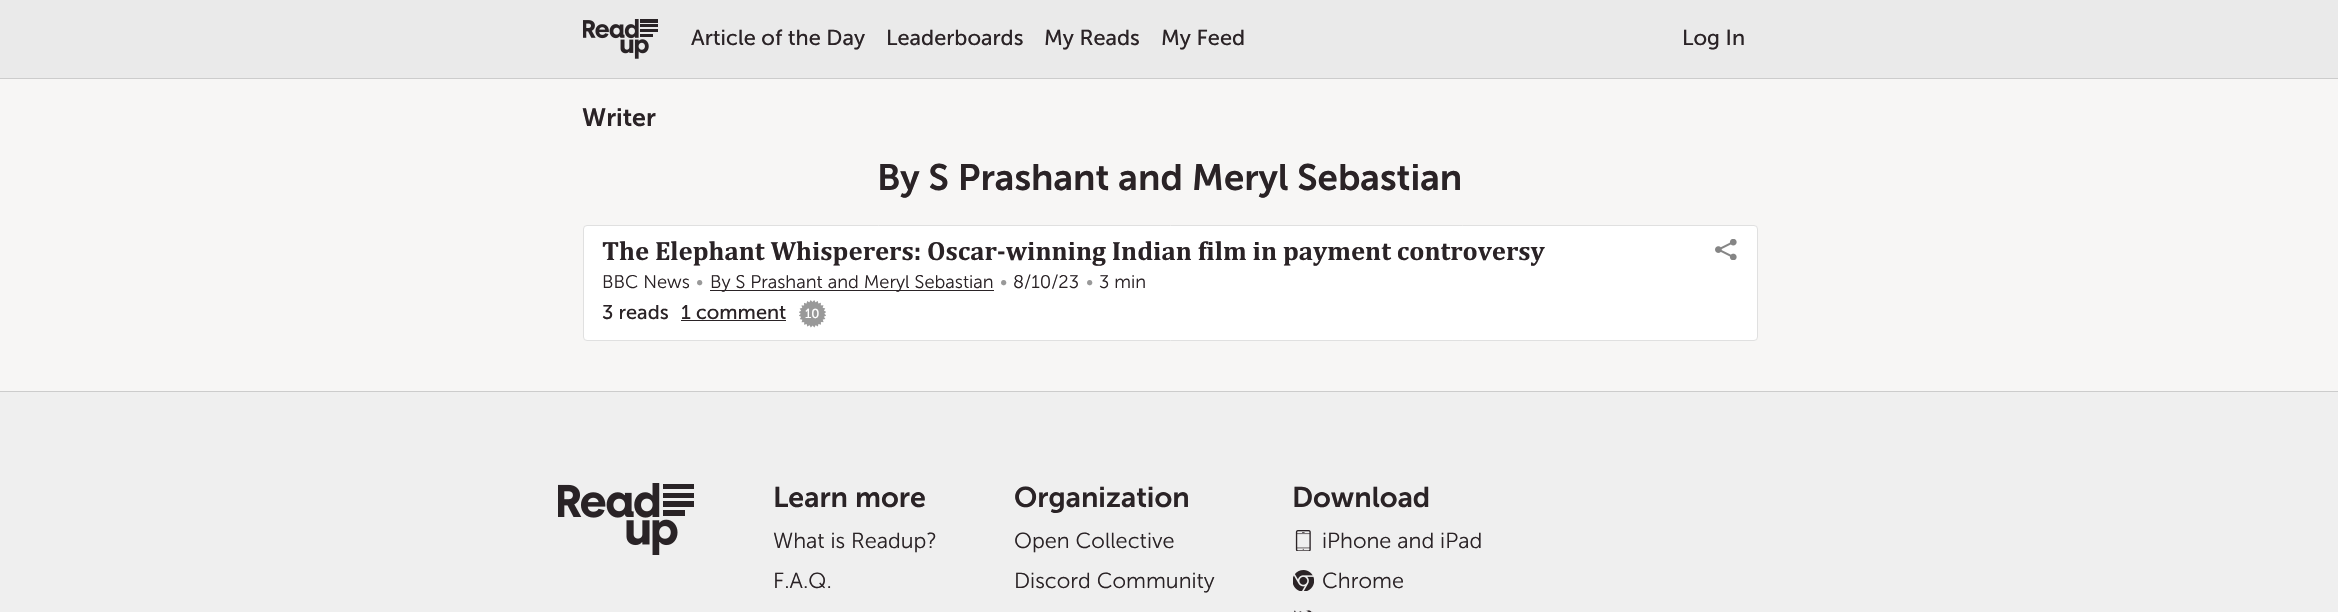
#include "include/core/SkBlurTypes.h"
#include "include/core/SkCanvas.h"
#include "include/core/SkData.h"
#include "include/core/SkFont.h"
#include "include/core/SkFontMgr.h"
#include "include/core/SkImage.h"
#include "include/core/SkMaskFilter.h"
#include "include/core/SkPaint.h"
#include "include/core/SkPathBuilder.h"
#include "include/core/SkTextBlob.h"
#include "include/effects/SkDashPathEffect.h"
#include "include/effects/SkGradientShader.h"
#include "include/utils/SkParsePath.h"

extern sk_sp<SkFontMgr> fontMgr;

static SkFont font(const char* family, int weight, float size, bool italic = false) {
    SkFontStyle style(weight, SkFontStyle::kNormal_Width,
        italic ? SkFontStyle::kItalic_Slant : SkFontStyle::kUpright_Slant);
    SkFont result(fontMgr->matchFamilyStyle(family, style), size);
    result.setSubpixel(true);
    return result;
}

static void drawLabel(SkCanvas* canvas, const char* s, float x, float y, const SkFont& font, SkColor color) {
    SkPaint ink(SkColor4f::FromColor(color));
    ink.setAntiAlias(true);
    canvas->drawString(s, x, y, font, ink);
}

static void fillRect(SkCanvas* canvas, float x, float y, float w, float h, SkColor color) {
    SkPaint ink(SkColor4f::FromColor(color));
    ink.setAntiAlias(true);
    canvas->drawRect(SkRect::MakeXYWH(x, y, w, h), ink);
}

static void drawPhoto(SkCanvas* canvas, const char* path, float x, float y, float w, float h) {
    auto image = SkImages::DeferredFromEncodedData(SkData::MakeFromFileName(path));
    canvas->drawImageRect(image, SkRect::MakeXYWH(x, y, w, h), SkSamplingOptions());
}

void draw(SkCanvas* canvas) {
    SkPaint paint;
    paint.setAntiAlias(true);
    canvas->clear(0xFFF7F6F5);
    fillRect(canvas, 0, 0, 2338, 78, 0xFFEAEAEA);
    fillRect(canvas, 0, 78, 2338, 1, 0xFFCCCCCC);
    drawPhoto(canvas, "assets/img1.png", 583, 19, 75, 40);
    SkFont font1 = font("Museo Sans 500", 400, 21.75f);
    drawLabel(canvas, "Article of the Day", 691, 45, font1, 0xFF2A2326);
    drawLabel(canvas, "Leaderboards", 886, 45, font1, 0xFF2A2326);
    drawLabel(canvas, "My Reads", 1044, 45, font1, 0xFF2A2326);
    drawLabel(canvas, "My Feed", 1161, 45, font1, 0xFF2A2326);
    drawLabel(canvas, "Log In", 1682, 45, font1, 0xFF2A2326);
    SkFont font2 = font("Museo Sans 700", 600, 25);
    drawLabel(canvas, "Writer", 582, 126, font2, 0xFF2A2326);
    SkFont font3 = font("Museo Sans 700", 600, 36.7f);
    drawLabel(canvas, "By S Prashant and Meryl Sebastian", 877, 190, font3, 0xFF2A2326);
    paint.setColor(0xFFFFFFFF);
    canvas->drawRoundRect(SkRect::MakeXYWH(583.5f, 225.5f, 1174, 115), 3.5f, 3.5f, paint);
    paint.setStroke(true);
    paint.setStrokeWidth(1);
    paint.setColor(0xFFE0E0E0);
    canvas->drawRoundRect(SkRect::MakeXYWH(583.5f, 225.5f, 1174, 115), 3.5f, 3.5f, paint);
    SkFont font4 = font("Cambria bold", 700, 26.65f);
    drawLabel(canvas, "The Elephant Whisperers: Oscar-winning Indian film in payment controversy", 602, 260, font4, 0xFF2A2326);
    drawPhoto(canvas, "assets/img2.png", 1715, 239, 22, 21);
    SkFont font5 = font("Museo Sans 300", 300, 18.3f);
    drawLabel(canvas, "BBC News", 602, 288, font5, 0xFF2A2326);
    drawLabel(canvas, "•", 696, 288, font5, 0xFF999999);
    fillRect(canvas, 710, 290, 284, 1, 0xFF2A2326);
    drawLabel(canvas, "By S Prashant and Meryl Sebastian", 710, 288, font5, 0xFF2A2326);
    drawLabel(canvas, "•", 1000, 288, font5, 0xFF999999);
    drawLabel(canvas, "8/10/23", 1013, 288, font5, 0xFF2A2326);
    drawLabel(canvas, "•", 1086, 288, font5, 0xFF999999);
    drawLabel(canvas, "3 min", 1099, 288, font5, 0xFF2A2326);
    SkFont font6 = font("Museo Sans 500", 400, 20);
    drawLabel(canvas, "3 reads", 602, 319, font6, 0xFF2A2326);
    drawLabel(canvas, "1 comment", 681, 319, font6, 0xFF2A2326);
    fillRect(canvas, 681, 320, 105, 1, 0xFF2A2326);
    drawPhoto(canvas, "assets/img3.png", 799, 300, 27, 28);
    SkFont font7 = font("Museo Sans 500", 400, 13);
    drawLabel(canvas, "10", 805, 318, font7, 0xFFFFFFFF);
    fillRect(canvas, 0, 392, 2338, 220, 0xFFEFEFEF);
    fillRect(canvas, 0, 391, 2338, 1, 0xFFCCCCCC);
    drawPhoto(canvas, "assets/img4.png", 558, 483, 136, 72);
    SkFont font8 = font("Museo Sans 700", 600, 28.5f);
    drawLabel(canvas, "Learn more", 773, 507, font8, 0xFF2A2326);
    SkFont font9 = font("Museo Sans 300", 300, 21.75f);
    drawLabel(canvas, "What is Readup?", 773, 548, font9, 0xFF2A2326);
    drawLabel(canvas, "F.A.Q.", 773, 588, font9, 0xFF2A2326);
    drawLabel(canvas, "Organization", 1014, 507, font8, 0xFF2A2326);
    drawLabel(canvas, "Open Collective", 1014, 548, font9, 0xFF2A2326);
    drawLabel(canvas, "Discord Community", 1014, 588, font9, 0xFF2A2326);
    drawLabel(canvas, "Download", 1292, 507, font8, 0xFF2A2326);
    drawPhoto(canvas, "assets/img5.png", 1295, 530, 16, 21);
    drawLabel(canvas, "iPhone and iPad", 1322, 548, font9, 0xFF2A2326);
    drawPhoto(canvas, "assets/img6.png", 1293, 570, 21, 21);
    drawLabel(canvas, "Chrome", 1322, 588, font9, 0xFF2A2326);
    drawPhoto(canvas, "assets/img7.png", 1294, 610, 19, 2);
}
